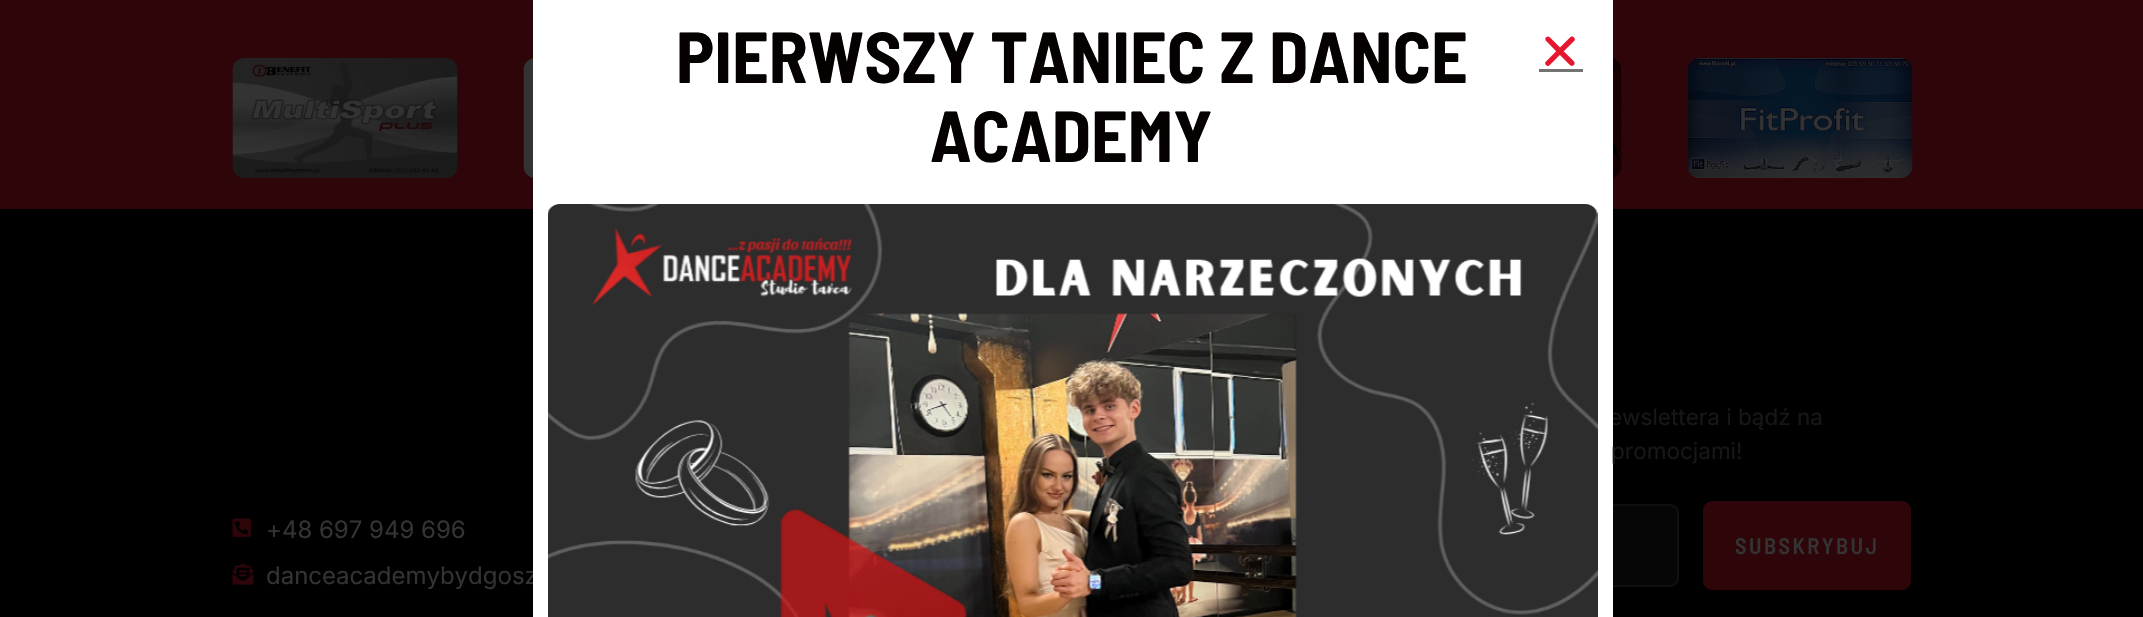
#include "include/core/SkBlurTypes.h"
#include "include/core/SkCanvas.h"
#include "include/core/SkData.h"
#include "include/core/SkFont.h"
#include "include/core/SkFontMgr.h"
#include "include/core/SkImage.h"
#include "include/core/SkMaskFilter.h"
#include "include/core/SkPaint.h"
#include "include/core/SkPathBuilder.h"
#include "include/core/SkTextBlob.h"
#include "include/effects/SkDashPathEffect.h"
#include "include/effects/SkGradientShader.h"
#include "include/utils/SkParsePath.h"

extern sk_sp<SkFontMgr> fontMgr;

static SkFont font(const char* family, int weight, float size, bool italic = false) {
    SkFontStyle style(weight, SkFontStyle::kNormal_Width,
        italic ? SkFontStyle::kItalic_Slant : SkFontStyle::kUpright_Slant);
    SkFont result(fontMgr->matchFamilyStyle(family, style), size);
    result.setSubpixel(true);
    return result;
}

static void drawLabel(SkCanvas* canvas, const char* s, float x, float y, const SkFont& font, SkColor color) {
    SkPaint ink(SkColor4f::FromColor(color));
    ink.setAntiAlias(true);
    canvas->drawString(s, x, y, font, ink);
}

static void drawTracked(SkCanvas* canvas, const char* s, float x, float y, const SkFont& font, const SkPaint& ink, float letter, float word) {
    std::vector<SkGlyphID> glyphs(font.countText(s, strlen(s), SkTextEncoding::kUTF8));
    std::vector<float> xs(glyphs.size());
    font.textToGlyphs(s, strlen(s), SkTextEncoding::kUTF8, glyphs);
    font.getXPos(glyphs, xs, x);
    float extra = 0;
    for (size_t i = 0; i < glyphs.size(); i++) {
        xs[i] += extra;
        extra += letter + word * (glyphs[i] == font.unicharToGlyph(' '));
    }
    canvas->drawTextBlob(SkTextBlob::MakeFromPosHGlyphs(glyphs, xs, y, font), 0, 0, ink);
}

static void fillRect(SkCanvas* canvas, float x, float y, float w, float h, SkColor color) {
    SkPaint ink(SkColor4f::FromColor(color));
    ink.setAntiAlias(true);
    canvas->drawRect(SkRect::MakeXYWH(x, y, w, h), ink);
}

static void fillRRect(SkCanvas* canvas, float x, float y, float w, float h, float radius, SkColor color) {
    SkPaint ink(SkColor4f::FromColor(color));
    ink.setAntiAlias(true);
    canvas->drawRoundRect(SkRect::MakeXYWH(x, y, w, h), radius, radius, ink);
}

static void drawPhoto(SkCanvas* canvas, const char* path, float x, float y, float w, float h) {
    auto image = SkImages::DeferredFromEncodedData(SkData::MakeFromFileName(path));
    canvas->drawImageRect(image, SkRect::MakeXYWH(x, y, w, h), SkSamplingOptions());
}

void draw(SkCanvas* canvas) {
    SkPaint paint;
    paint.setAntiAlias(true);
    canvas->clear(0xFF2E0509);
    fillRect(canvas, 0, 209, 2143, 408, 0xFF010000);
    SkFont font1 = font("Inter", 400, 24);
    drawLabel(canvas, "danceacademybydgosz", 266, 584, font1, 0xFF333333);
    SkFont font2 = font("Inter", 400, 22.5f);
    drawLabel(canvas, "ewslettera i bądź na", 1609, 425, font2, 0xFF171717);
    fillRRect(canvas, 1352, 504, 327, 83, 9, 0xFF060606);
    paint.setStroke(true);
    paint.setStrokeWidth(2);
    paint.setColor(0x422C2C2C);
    canvas->drawRoundRect(SkRect::MakeXYWH(1353, 505, 325, 81), 8, 8, paint);
    fillRect(canvas, 533, 0, 1080, 617, 0xFFFFFFFF);
    SkFont font3 = font("Barlow Semi Condensed", 700, 72);
    drawLabel(canvas, "PIERWSZY TANIEC Z DANCE", 676, 83, font3, 0xFF050101);
    drawLabel(canvas, "ACADEMY", 930, 162, font3, 0xFF050101);
    drawPhoto(canvas, "assets/img1.png", 548, 204, 1050, 413);
    drawPhoto(canvas, "assets/img2.png", 1545, 36, 30, 30);
    fillRect(canvas, 1539, 69, 44, 3, 0xFF737373);
    drawPhoto(canvas, "assets/img3.png", 232, 58, 226, 120);
    drawPhoto(canvas, "assets/img4.png", 523, 58, 10, 120);
    drawPhoto(canvas, "assets/img5.png", 1613, 58, 9, 120);
    drawPhoto(canvas, "assets/img6.png", 1687, 58, 226, 120);
    drawPhoto(canvas, "assets/img7.png", 232, 518, 19, 19);
    drawLabel(canvas, "+48 697 949 696", 266, 538, font1, 0xFF333333);
    drawPhoto(canvas, "assets/img8.png", 232, 563, 22, 22);
    drawLabel(canvas, "promocjami!", 1611, 459, font2, 0xFF171717);
    paint.setStroke(false);
    paint.setColor(0xFF2E0509);
    canvas->drawRoundRect(SkRect::MakeXYWH(1704, 502, 206, 87), 8, 8, paint);
    paint.setStroke(true);
    canvas->drawRoundRect(SkRect::MakeXYWH(1704, 502, 206, 87), 8, 8, paint);
    SkFont font4 = font("Barlow Semi Condensed", 600, 22.5f);
    paint.setStroke(false);
    paint.setColor(0xFF333333);
    drawTracked(canvas, "SUBSKRYBUJ", 1735, 554, font4, paint, 2.4f, 0);
}
